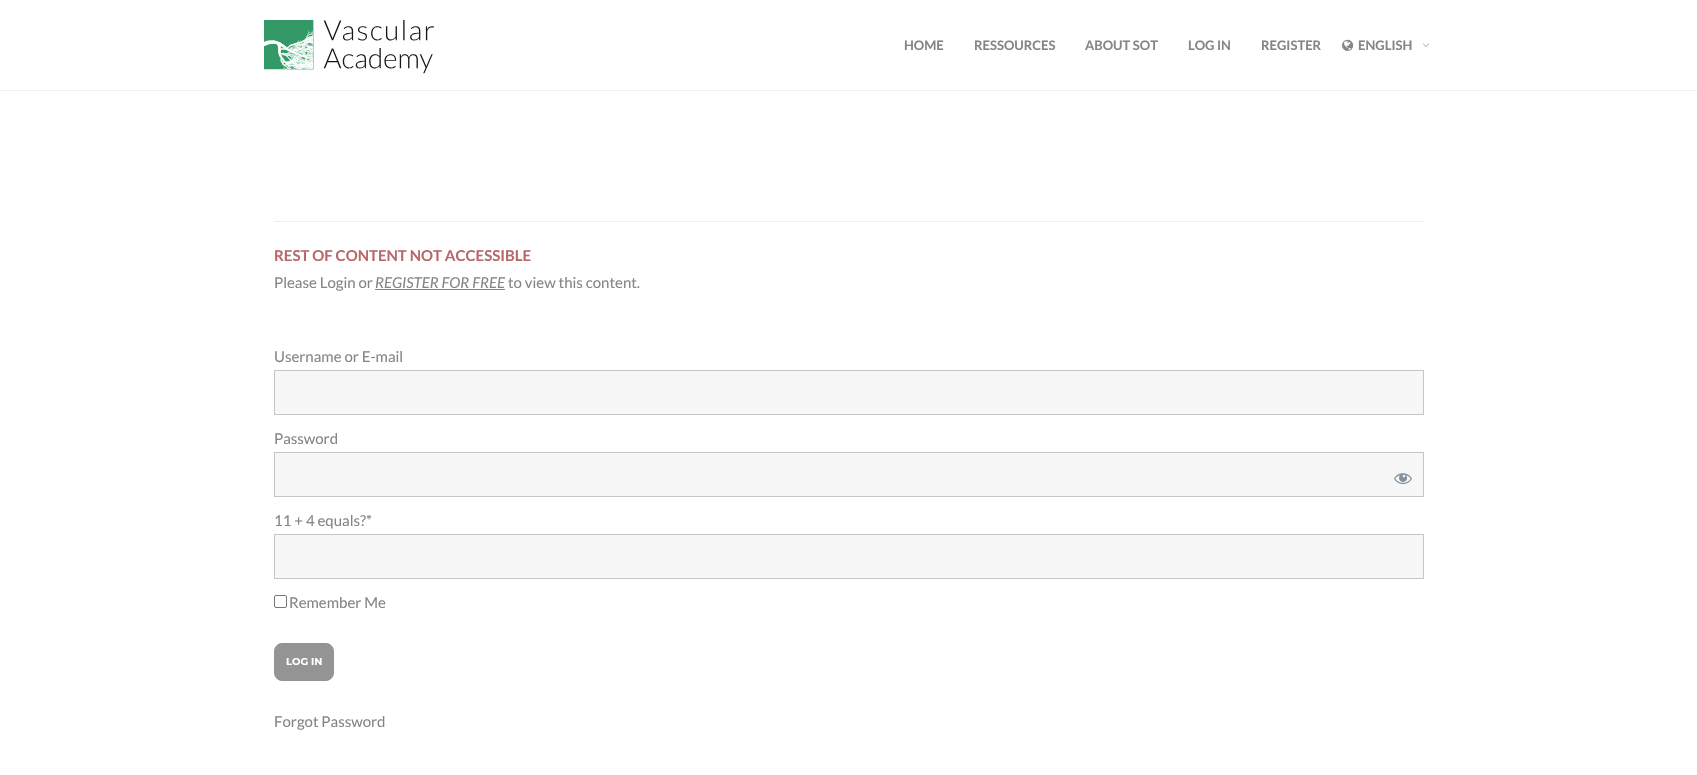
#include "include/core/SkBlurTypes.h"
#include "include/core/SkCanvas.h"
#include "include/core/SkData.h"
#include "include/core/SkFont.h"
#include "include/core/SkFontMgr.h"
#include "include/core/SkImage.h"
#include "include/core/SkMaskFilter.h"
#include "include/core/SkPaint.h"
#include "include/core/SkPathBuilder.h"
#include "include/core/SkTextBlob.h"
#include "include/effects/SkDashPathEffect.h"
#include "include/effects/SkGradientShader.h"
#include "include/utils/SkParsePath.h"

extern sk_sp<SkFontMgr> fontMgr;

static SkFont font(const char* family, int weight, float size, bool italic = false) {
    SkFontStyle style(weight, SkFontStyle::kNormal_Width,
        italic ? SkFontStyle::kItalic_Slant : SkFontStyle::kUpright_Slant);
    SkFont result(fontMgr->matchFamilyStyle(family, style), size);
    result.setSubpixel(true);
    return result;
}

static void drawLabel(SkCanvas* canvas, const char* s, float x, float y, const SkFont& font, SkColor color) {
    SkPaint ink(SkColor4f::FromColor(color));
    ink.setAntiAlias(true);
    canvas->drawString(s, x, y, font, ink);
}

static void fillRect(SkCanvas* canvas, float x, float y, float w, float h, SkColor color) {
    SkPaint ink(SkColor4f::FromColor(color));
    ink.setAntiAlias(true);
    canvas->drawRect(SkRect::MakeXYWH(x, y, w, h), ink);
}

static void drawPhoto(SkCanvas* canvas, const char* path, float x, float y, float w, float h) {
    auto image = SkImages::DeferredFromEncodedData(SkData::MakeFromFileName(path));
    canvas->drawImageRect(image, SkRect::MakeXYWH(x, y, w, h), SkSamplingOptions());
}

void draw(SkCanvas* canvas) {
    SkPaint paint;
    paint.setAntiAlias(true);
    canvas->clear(0xFFFFFFFF);
    fillRect(canvas, 0, 90, 1697, 1, 0xFFEEEEEE);
    drawPhoto(canvas, "assets/img1.png", 264, 20, 170, 54);
    SkFont font1 = font("Lato", 700, 13);
    drawLabel(canvas, "HOME", 904, 50, font1, 0xFF858585);
    drawLabel(canvas, "RESSOURCES", 974, 50, font1, 0xFF858585);
    drawLabel(canvas, "ABOUT SOT", 1085, 50, font1, 0xFF858585);
    drawLabel(canvas, "LOG IN", 1188, 50, font1, 0xFF858585);
    drawLabel(canvas, "REGISTER", 1261, 50, font1, 0xFF858585);
    drawPhoto(canvas, "assets/img2.png", 1342, 39, 12, 12);
    drawLabel(canvas, "ENGLISH", 1358, 50, font1, 0xFF858585);
    drawPhoto(canvas, "assets/img3.png", 1423, 43, 6, 4);
    fillRect(canvas, 274, 221, 1150, 1, 0xFFEEEEEE);
    SkFont font2 = font("Lato", 700, 15);
    drawLabel(canvas, "REST OF CONTENT NOT ACCESSIBLE", 274, 261, font2, 0xFFB86868);
    SkFont font3 = font("Lato", 400, 15);
    drawLabel(canvas, "Please Login or", 274, 288, font3, 0xFF858585);
    SkFont font4 = font("Lato", 400, 15, true);
    drawLabel(canvas, "REGISTER FOR FREE", 375, 288, font4, 0xFF858585);
    fillRect(canvas, 375, 289, 130, 1, 0xFF858585);
    drawLabel(canvas, "to view this content.", 508, 288, font3, 0xFF858585);
    drawLabel(canvas, "Username or E-mail", 274, 362, font3, 0xFF858585);
    paint.setColor(0xFFF7F7F7);
    canvas->drawRect(SkRect::MakeXYWH(274.5f, 370.5f, 1149, 44), paint);
    paint.setStroke(true);
    paint.setStrokeWidth(1);
    paint.setColor(0xFFC6C6C6);
    canvas->drawRect(SkRect::MakeXYWH(274.5f, 370.5f, 1149, 44), paint);
    drawLabel(canvas, "Password", 274, 444, font3, 0xFF858585);
    paint.setStroke(false);
    paint.setColor(0xFFF7F7F7);
    canvas->drawRect(SkRect::MakeXYWH(274.5f, 452.5f, 1149, 44), paint);
    paint.setStroke(true);
    paint.setColor(0xFFC6C6C6);
    canvas->drawRect(SkRect::MakeXYWH(274.5f, 452.5f, 1149, 44), paint);
    drawPhoto(canvas, "assets/img4.png", 1394, 473, 18, 12);
    drawLabel(canvas, "11 + 4 equals?*", 274, 526, font3, 0xFF858585);
    paint.setStroke(false);
    paint.setColor(0xFFF7F7F7);
    canvas->drawRect(SkRect::MakeXYWH(274.5f, 534.5f, 1149, 44), paint);
    paint.setStroke(true);
    paint.setColor(0xFFC6C6C6);
    canvas->drawRect(SkRect::MakeXYWH(274.5f, 534.5f, 1149, 44), paint);
    paint.setColor(0xFF767676);
    canvas->drawRoundRect(SkRect::MakeXYWH(274.5f, 595.5f, 12, 12), 1.5f, 1.5f, paint);
    drawLabel(canvas, "Remember Me", 289, 608, font3, 0xFF858585);
    paint.setStroke(false);
    paint.setColor(0xFF949494);
    canvas->drawRoundRect(SkRect::MakeXYWH(274.5f, 643.5f, 59, 37), 7.5f, 7.5f, paint);
    paint.setStroke(true);
    canvas->drawRoundRect(SkRect::MakeXYWH(274.5f, 643.5f, 59, 37), 7.5f, 7.5f, paint);
    SkFont font5 = font("Montserrat", 700, 10);
    drawLabel(canvas, "LOG IN", 286, 665, font5, 0xFFFFFFFF);
    drawLabel(canvas, "Forgot Password", 274, 727, font3, 0xFF858585);
}
